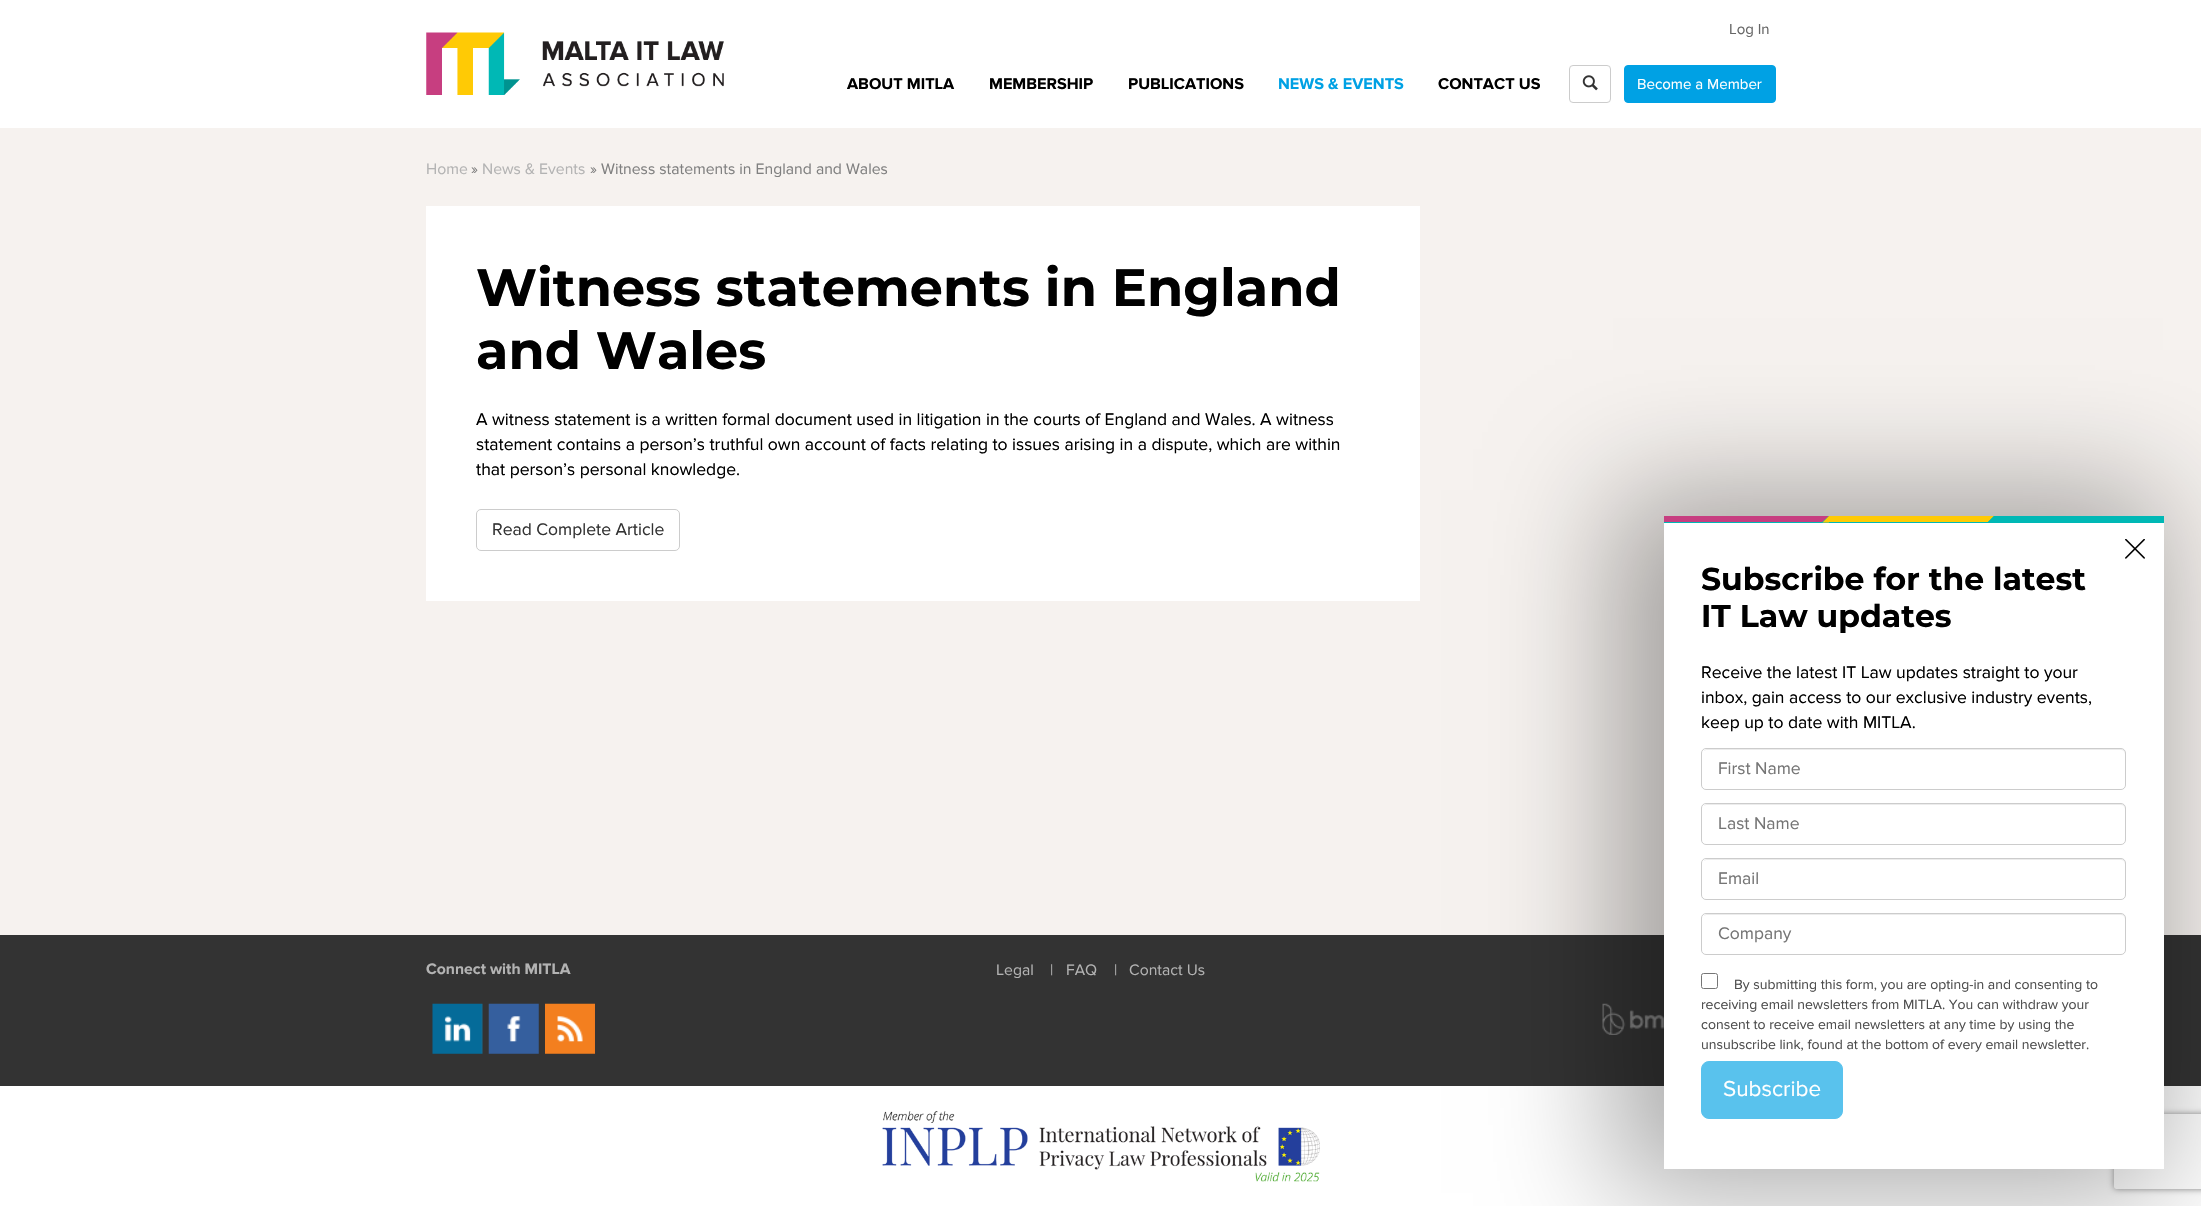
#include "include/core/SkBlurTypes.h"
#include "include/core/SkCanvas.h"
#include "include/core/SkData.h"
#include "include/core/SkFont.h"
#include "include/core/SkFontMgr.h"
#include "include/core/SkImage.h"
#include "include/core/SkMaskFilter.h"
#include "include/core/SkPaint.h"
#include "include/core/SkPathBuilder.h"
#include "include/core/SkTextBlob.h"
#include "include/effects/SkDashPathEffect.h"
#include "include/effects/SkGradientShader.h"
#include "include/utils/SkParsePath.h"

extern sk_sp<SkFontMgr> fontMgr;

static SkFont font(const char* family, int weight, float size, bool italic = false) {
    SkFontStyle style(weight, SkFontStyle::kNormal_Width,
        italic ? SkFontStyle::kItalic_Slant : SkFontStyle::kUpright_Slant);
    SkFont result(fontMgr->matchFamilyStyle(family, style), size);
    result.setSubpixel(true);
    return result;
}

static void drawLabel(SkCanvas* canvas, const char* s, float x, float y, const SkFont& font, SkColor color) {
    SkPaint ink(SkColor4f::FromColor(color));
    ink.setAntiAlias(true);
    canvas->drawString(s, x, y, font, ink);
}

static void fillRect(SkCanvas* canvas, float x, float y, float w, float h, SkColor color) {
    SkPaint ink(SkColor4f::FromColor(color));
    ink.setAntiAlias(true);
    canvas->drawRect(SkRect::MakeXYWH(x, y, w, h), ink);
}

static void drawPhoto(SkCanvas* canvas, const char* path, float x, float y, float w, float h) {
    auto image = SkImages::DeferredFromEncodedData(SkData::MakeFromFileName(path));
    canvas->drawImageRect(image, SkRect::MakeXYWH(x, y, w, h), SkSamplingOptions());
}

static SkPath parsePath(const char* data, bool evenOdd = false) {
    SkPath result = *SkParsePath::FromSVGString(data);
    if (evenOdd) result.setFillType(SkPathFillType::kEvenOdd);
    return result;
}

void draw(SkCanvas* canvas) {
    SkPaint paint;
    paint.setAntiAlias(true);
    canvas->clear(0xFFFFFFFF);
    drawPhoto(canvas, "assets/img1.png", 426, 32, 298, 63);
    SkFont font1 = font("Proxima Nova", 400, 15);
    drawLabel(canvas, "Log In", 1729, 34, font1, 0xFF666666);
    SkFont font2 = font("Proxima Nova", 700, 16.25f);
    drawLabel(canvas, "ABOUT MITLA", 847, 89, font2, 0xFF000000);
    drawLabel(canvas, "MEMBERSHIP", 989, 89, font2, 0xFF000000);
    drawLabel(canvas, "PUBLICATIONS", 1128, 89, font2, 0xFF000000);
    drawLabel(canvas, "NEWS & EVENTS", 1278, 89, font2, 0xFF00A1E4);
    drawLabel(canvas, "CONTACT US", 1438, 89, font2, 0xFF000000);
    paint.setStroke(true);
    paint.setStrokeWidth(1);
    paint.setColor(0xFFCCCCCC);
    canvas->drawRoundRect(SkRect::MakeXYWH(1569.5f, 65.5f, 41, 37), 3.5f, 3.5f, paint);
    drawPhoto(canvas, "assets/img2.png", 1582, 75, 16, 16);
    paint.setStroke(false);
    paint.setColor(0xFF00A1E4);
    canvas->drawRoundRect(SkRect::MakeXYWH(1624.5f, 65.5f, 151, 37), 3.5f, 3.5f, paint);
    paint.setStroke(true);
    canvas->drawRoundRect(SkRect::MakeXYWH(1624.5f, 65.5f, 151, 37), 3.5f, 3.5f, paint);
    drawLabel(canvas, "Become a Member", 1637, 89, font1, 0xFFFFFFFF);
    fillRect(canvas, 0, 128, 2201, 807, 0xFFF6F2EF);
    SkFont font3 = font("Proxima Nova", 400, 15.75f);
    drawLabel(canvas, "Home", 426, 174, font3, 0xFFB3B3B3);
    drawLabel(canvas, "»", 471, 174, font3, 0xFF808080);
    drawLabel(canvas, "News & Events", 482, 174, font3, 0xFFB3B3B3);
    drawLabel(canvas, "» Witness statements in England and Wales", 590, 174, font3, 0xFF808080);
    fillRect(canvas, 426, 206, 994, 395, 0xFFFFFFFF);
    SkFont font4 = font("Montserrat", 700, 52.5f);
    drawLabel(canvas, "Witness statements in England", 476, 306, font4, 0xFF000000);
    drawLabel(canvas, "and Wales", 476, 369, font4, 0xFF000000);
    SkFont font5 = font("Proxima Nova", 400, 17.5f);
    drawLabel(canvas, "A witness statement is a written formal document used in litigation in the courts of England and Wales. A witness", 476, 425, font5, 0xFF000000);
    drawLabel(canvas, "statement contains a person’s truthful own account of facts relating to issues arising in a dispute, which are within", 476, 450, font5, 0xFF000000);
    drawLabel(canvas, "that person’s personal knowledge.", 476, 475, font5, 0xFF000000);
    paint.setColor(0xFFCCCCCC);
    canvas->drawRoundRect(SkRect::MakeXYWH(476.5f, 509.5f, 203, 41), 4.5f, 4.5f, paint);
    drawLabel(canvas, "Read Complete Article", 492, 535, font5, 0xFF333333);
    fillRect(canvas, 0, 935, 2201, 151, 0xFF333333);
    SkFont font6 = font("Proxima Nova", 700, 15.75f);
    drawLabel(canvas, "Connect with MITLA", 426, 974, font6, 0xFFB3B3B3);
    drawPhoto(canvas, "assets/img3.png", 432, 1003, 51, 51);
    drawPhoto(canvas, "assets/img4.png", 488, 1003, 51, 51);
    drawPhoto(canvas, "assets/img5.png", 545, 1003, 50, 51);
    drawLabel(canvas, "Legal", 996, 975, font3, 0xFFB3B3B3);
    drawLabel(canvas, "|", 1050, 975, font3, 0xFFB3B3B3);
    drawLabel(canvas, "FAQ", 1066, 975, font3, 0xFFB3B3B3);
    drawLabel(canvas, "|", 1114, 975, font3, 0xFFB3B3B3);
    drawLabel(canvas, "Contact Us", 1129, 975, font3, 0xFFB3B3B3);
    drawPhoto(canvas, "assets/img6.png", 1602, 1003, 62, 32);
    drawPhoto(canvas, "assets/img7.png", 882, 1111, 438, 71);
    paint.setStroke(false);
    paint.setColor(0x54000000);
    paint.setMaskFilter(SkMaskFilter::MakeBlur(kNormal_SkBlurStyle, 57.5f));
    canvas->drawRect(SkRect::MakeXYWH(1613, 490, 550, 703), paint);
    paint.setMaskFilter(nullptr);
    canvas->save();
    canvas->clipPath(parsePath("M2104 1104H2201V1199H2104ZM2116.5 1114H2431.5C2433 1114 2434 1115 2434 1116.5V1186.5C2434 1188 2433 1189 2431.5 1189H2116.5C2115 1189 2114 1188 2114 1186.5V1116.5C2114 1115 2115 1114 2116.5 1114Z", true), true);
    paint.setColor(0xFF808080);
    paint.setMaskFilter(SkMaskFilter::MakeBlur(kNormal_SkBlurStyle, 3));
    canvas->drawRoundRect(SkRect::MakeXYWH(2114, 1114, 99, 75), 2.5f, 2.5f, paint);
    paint.setMaskFilter(nullptr);
    canvas->restore();
    fillRect(canvas, 1664, 523, 500, 646, 0xFFFFFFFF);
    fillRect(canvas, 1664, 516, 500, 7, 0xFF00B8B5);
    paint.setColor(0xFFC73E80);
    canvas->drawPath(parsePath("M1664 516H1829L1822 522H1664Z"), paint);
    paint.setColor(0xFFFFCA05);
    canvas->drawPath(parsePath("M1829 516V522.5H1822.5Z"), paint);
    canvas->drawPath(parsePath("M1829 516H1994L1988 522H1829Z"), paint);
    paint.setColor(0xFF00B8B5);
    canvas->drawPath(parsePath("M1994 516V522.5H1987.5Z"), paint);
    drawPhoto(canvas, "assets/img8.png", 2125, 539, 20, 20);
    SkFont font7 = font("Montserrat", 700, 31.5f);
    drawLabel(canvas, "Subscribe for the latest", 1701, 590, font7, 0xFF000000);
    drawLabel(canvas, "IT Law updates", 1701, 627, font7, 0xFF000000);
    drawLabel(canvas, "Receive the latest IT Law updates straight to your", 1701, 678, font5, 0xFF000000);
    drawLabel(canvas, "inbox, gain access to our exclusive industry events,", 1701, 703, font5, 0xFF000000);
    drawLabel(canvas, "keep up to date with MITLA.", 1701, 728, font5, 0xFF000000);
    paint.setColor(0xFFECECEC);
    canvas->drawPath(parsePath("M1706 750H2121C2123 750 2125 752 2125 754V753C2125 751 2123 749 2121 749H1707C1706 749 1704 750 1704 751Z"), paint);
    paint.setStroke(true);
    paint.setColor(0xFFCCCCCC);
    canvas->drawRoundRect(SkRect::MakeXYWH(1701.5f, 748.5f, 424, 41), 4.5f, 4.5f, paint);
    drawLabel(canvas, "First Name", 1718, 774, font5, 0xFF757575);
    paint.setStroke(false);
    paint.setColor(0xFFECECEC);
    canvas->drawPath(parsePath("M1706 805H2121C2123 805 2125 807 2125 809V808C2125 806 2123 804 2121 804H1707C1706 804 1704 805 1704 806Z"), paint);
    paint.setStroke(true);
    paint.setColor(0xFFCCCCCC);
    canvas->drawRoundRect(SkRect::MakeXYWH(1701.5f, 803.5f, 424, 41), 4.5f, 4.5f, paint);
    drawLabel(canvas, "Last Name", 1718, 829, font5, 0xFF757575);
    paint.setStroke(false);
    paint.setColor(0xFFECECEC);
    canvas->drawPath(parsePath("M1706 860H2121C2123 860 2125 862 2125 864V863C2125 861 2123 859 2121 859H1707C1706 859 1704 860 1704 861Z"), paint);
    paint.setStroke(true);
    paint.setColor(0xFFCCCCCC);
    canvas->drawRoundRect(SkRect::MakeXYWH(1701.5f, 858.5f, 424, 41), 4.5f, 4.5f, paint);
    drawLabel(canvas, "Email", 1718, 884, font5, 0xFF757575);
    paint.setStroke(false);
    paint.setColor(0xFFECECEC);
    canvas->drawPath(parsePath("M1706 915H2121C2123 915 2125 917 2125 919V918C2125 916 2123 914 2121 914H1707C1706 914 1704 915 1704 916Z"), paint);
    paint.setStroke(true);
    paint.setColor(0xFFCCCCCC);
    canvas->drawRoundRect(SkRect::MakeXYWH(1701.5f, 913.5f, 424, 41), 4.5f, 4.5f, paint);
    drawLabel(canvas, "Company", 1718, 939, font5, 0xFF757575);
    paint.setColor(0xFF767676);
    canvas->drawRoundRect(SkRect::MakeXYWH(1701.5f, 973.5f, 16, 15), 2, 2, paint);
    SkFont font8 = font("Proxima Nova", 400, 14);
    drawLabel(canvas, "By submitting this form, you are opting-in and consenting to", 1734, 989, font8, 0xFF4D4D4D);
    drawLabel(canvas, "receiving email newsletters from MITLA. You can withdraw your", 1701, 1009, font8, 0xFF4D4D4D);
    drawLabel(canvas, "consent to receive email newsletters at any time by using the", 1701, 1029, font8, 0xFF4D4D4D);
    drawLabel(canvas, "unsubscribe link, found at the bottom of every email newsletter.", 1701, 1049, font8, 0xFF4D4D4D);
    paint.setStroke(false);
    paint.setColor(0xFF59C2ED);
    canvas->drawRoundRect(SkRect::MakeXYWH(1701.5f, 1061.5f, 141, 57), 7.5f, 7.5f, paint);
    paint.setStroke(true);
    canvas->drawRoundRect(SkRect::MakeXYWH(1701.5f, 1061.5f, 141, 57), 7.5f, 7.5f, paint);
    SkFont font9 = font("Proxima Nova", 400, 22.5f);
    drawLabel(canvas, "Subscribe", 1723, 1096, font9, 0xFFFFFFFF);
}
